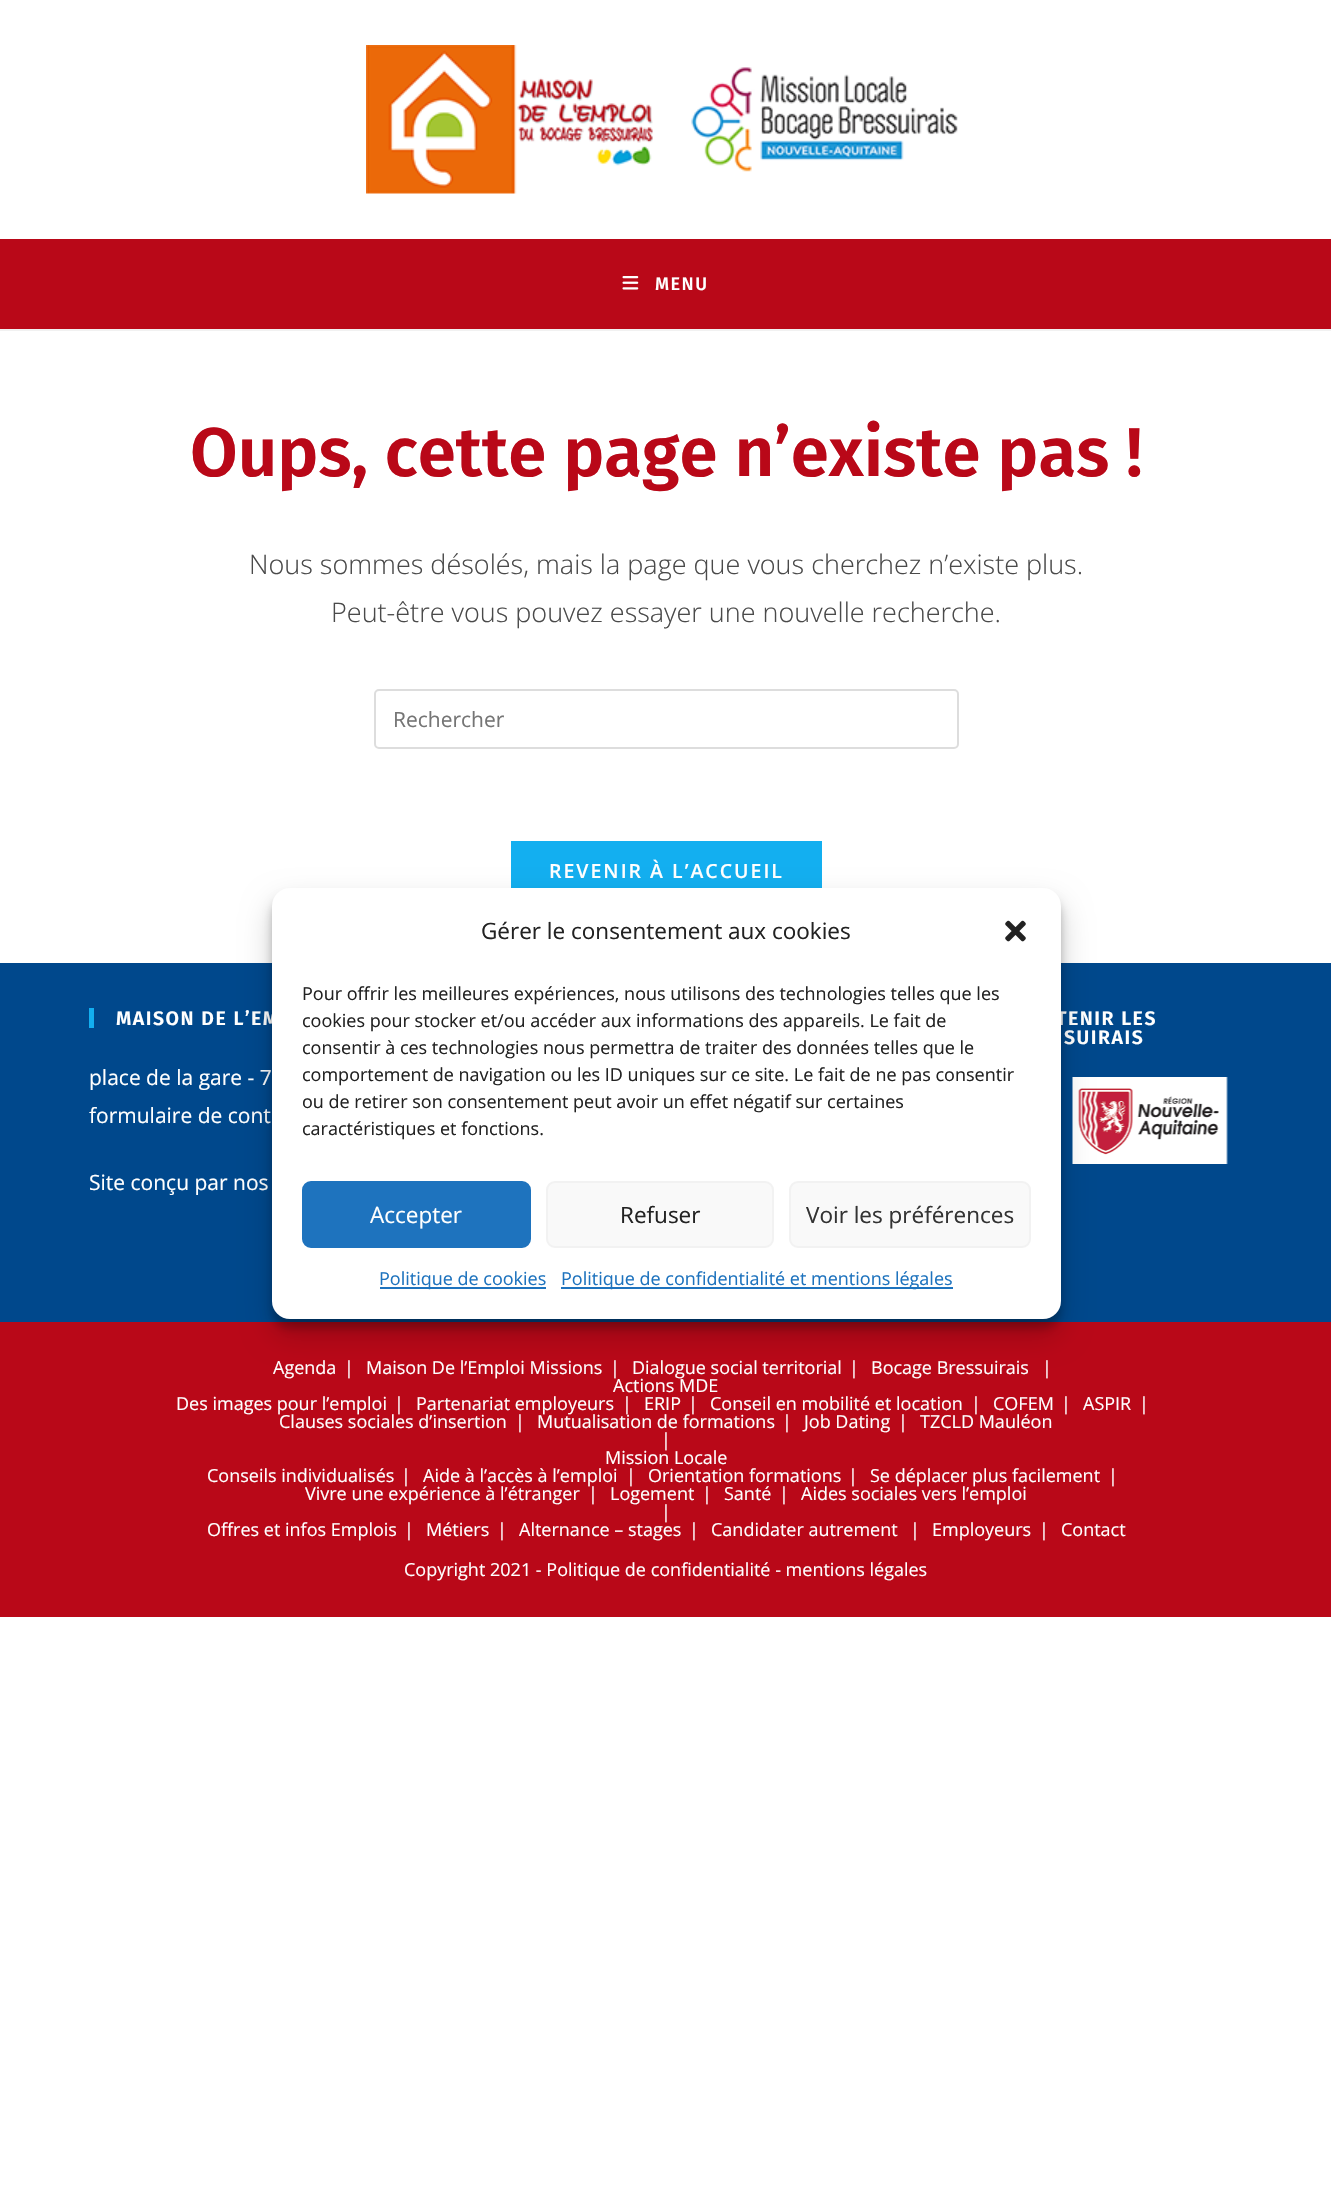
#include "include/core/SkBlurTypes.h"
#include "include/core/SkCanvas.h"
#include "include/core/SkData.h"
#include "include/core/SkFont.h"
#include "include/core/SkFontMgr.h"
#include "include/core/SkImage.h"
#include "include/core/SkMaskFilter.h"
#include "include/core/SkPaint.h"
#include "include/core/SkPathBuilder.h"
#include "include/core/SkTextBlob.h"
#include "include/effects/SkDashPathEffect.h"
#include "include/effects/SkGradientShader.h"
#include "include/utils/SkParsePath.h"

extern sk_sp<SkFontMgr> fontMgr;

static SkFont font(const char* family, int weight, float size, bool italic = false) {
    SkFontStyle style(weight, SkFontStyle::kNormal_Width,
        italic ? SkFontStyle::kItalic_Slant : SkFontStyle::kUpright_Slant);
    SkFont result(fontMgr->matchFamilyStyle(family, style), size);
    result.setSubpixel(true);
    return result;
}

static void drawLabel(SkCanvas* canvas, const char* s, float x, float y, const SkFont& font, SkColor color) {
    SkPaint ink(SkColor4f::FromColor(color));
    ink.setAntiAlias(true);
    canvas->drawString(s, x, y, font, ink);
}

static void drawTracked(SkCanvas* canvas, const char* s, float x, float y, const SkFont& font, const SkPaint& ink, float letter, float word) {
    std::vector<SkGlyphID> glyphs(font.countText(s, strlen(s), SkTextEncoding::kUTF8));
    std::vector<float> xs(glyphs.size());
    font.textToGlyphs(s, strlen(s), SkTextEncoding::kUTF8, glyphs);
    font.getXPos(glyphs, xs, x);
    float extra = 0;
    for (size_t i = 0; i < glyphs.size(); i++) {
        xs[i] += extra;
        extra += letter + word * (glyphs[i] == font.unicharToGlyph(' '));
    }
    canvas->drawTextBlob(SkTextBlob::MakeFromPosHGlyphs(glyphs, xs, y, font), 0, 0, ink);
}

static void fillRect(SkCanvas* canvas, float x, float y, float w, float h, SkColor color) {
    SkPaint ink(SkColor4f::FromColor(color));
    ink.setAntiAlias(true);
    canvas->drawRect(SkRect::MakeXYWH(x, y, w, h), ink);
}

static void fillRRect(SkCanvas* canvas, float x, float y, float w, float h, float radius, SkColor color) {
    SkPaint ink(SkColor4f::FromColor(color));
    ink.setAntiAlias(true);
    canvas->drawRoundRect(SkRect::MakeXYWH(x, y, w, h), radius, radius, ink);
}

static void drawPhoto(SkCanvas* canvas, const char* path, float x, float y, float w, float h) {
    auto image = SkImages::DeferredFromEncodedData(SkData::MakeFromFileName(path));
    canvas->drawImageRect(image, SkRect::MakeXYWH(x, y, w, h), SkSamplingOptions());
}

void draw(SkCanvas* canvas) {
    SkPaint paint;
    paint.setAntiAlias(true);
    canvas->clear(0xFFFFFFFF);
    fillRect(canvas, 0, 329, 1331, 2, 0xFFF1F1F1);
    drawPhoto(canvas, "assets/img1.png", 366, 45, 592, 149);
    fillRect(canvas, 0, 239, 1331, 90, 0xFFB90818);
    drawPhoto(canvas, "assets/img2.png", 622, 276, 17, 14);
    SkFont font1 = font("Fira Sans", 500, 18);
    paint.setColor(0xFFFFFFFF);
    drawTracked(canvas, "MENU", 655, 290, font1, paint, 1.5f, 0);
    SkFont font2 = font("Fira Sans", 600, 69);
    drawLabel(canvas, "Oups, cette page n’existe pas !", 190, 476, font2, 0xFFB90818);
    SkFont font3 = font("Open Sans", 300, 27);
    drawLabel(canvas, "Nous sommes désolés, mais la page que vous cherchez n’existe plus.", 249, 574, font3, 0xFF4A4A4A);
    drawLabel(canvas, "Peut-être vous pouvez essayer une nouvelle recherche.", 331, 622, font3, 0xFF4A4A4A);
    paint.setStroke(true);
    paint.setStrokeWidth(2);
    paint.setColor(0xFFDDDDDD);
    canvas->drawRoundRect(SkRect::MakeXYWH(375, 690, 583, 58), 4, 4, paint);
    SkFont font4 = font("Open Sans", 400, 21);
    drawLabel(canvas, "Rechercher", 393, 727, font4, 0xFF757575);
    fillRect(canvas, 511, 841, 311, 47, 0xFF13AFF0);
    SkFont font5 = font("Open Sans", 600, 19.5f);
    paint.setStroke(false);
    paint.setColor(0xFFFFFFFF);
    drawTracked(canvas, "REVENIR À L’ACCUEIL", 549, 878, font5, paint, 2, 0);
    fillRect(canvas, 0, 963, 1331, 359, 0xFF00488C);
    fillRect(canvas, 89, 1008, 5, 20, 0xFF13AFF0);
    SkFont font6 = font("Fira Sans", 600, 19.5f);
    drawTracked(canvas, "MAISON DE L’EM", 116, 1025, font6, paint, 1.5f, 0);
    drawLabel(canvas, "place de la gare - 7", 89, 1085, font4, 0xFFFFFFFF);
    drawLabel(canvas, "formulaire de cont", 89, 1123, font4, 0xFFFFFFFF);
    drawLabel(canvas, "Site conçu par nos", 89, 1190, font4, 0xFFFFFFFF);
    drawTracked(canvas, "TENIR LES", 1056, 1025, font6, paint, 1.5f, 0);
    drawTracked(canvas, "SUIRAIS", 1064, 1044, font6, paint, 1.5f, 0);
    drawPhoto(canvas, "assets/img3.png", 1072, 1077, 156, 87);
    fillRect(canvas, 0, 1322, 1331, 295, 0xFFB90818);
    SkFont font7 = font("Open Sans", 400, 18);
    drawLabel(canvas, "Agenda", 273, 1374, font7, 0xFFFFFFFF);
    drawLabel(canvas, "|", 344, 1374, font7, 0xFFFFFFFF);
    drawLabel(canvas, "Maison De l’Emploi Missions", 366, 1374, font7, 0xFFFFFFFF);
    drawLabel(canvas, "|", 610, 1374, font7, 0xFFFFFFFF);
    drawLabel(canvas, "Dialogue social territorial", 632, 1374, font7, 0xFFFFFFFF);
    drawLabel(canvas, "|", 849, 1374, font7, 0xFFFFFFFF);
    drawLabel(canvas, "Bocage Bressuirais", 871, 1374, font7, 0xFFFFFFFF);
    drawLabel(canvas, "|", 1042, 1374, font7, 0xFFFFFFFF);
    drawLabel(canvas, "Actions MDE", 613, 1392, font7, 0xFFFFFFFF);
    drawLabel(canvas, "Des images pour l’emploi", 176, 1410, font7, 0xFFFFFFFF);
    drawLabel(canvas, "|", 394, 1410, font7, 0xFFFFFFFF);
    drawLabel(canvas, "Partenariat employeurs", 416, 1410, font7, 0xFFFFFFFF);
    drawLabel(canvas, "|", 622, 1410, font7, 0xFFFFFFFF);
    drawLabel(canvas, "ERIP", 644, 1410, font7, 0xFFFFFFFF);
    drawLabel(canvas, "|", 688, 1410, font7, 0xFFFFFFFF);
    drawLabel(canvas, "Conseil en mobilité et location", 710, 1410, font7, 0xFFFFFFFF);
    drawLabel(canvas, "|", 971, 1410, font7, 0xFFFFFFFF);
    drawLabel(canvas, "COFEM", 993, 1410, font7, 0xFFFFFFFF);
    drawLabel(canvas, "|", 1061, 1410, font7, 0xFFFFFFFF);
    drawLabel(canvas, "ASPIR", 1083, 1410, font7, 0xFFFFFFFF);
    drawLabel(canvas, "|", 1139, 1410, font7, 0xFFFFFFFF);
    drawLabel(canvas, "Clauses sociales d’insertion", 279, 1428, font7, 0xFFFFFFFF);
    drawLabel(canvas, "|", 515, 1428, font7, 0xFFFFFFFF);
    drawLabel(canvas, "Mutualisation de formations", 537, 1428, font7, 0xFFFFFFFF);
    drawLabel(canvas, "|", 782, 1428, font7, 0xFFFFFFFF);
    drawLabel(canvas, "Job Dating", 804, 1428, font7, 0xFFFFFFFF);
    drawLabel(canvas, "|", 898, 1428, font7, 0xFFFFFFFF);
    drawLabel(canvas, "TZCLD Mauléon", 920, 1428, font7, 0xFFFFFFFF);
    drawLabel(canvas, "|", 661, 1446, font7, 0xFFFFFFFF);
    drawLabel(canvas, "Mission Locale", 605, 1464, font7, 0xFFFFFFFF);
    drawLabel(canvas, "Conseils individualisés", 207, 1482, font7, 0xFFFFFFFF);
    drawLabel(canvas, "|", 401, 1482, font7, 0xFFFFFFFF);
    drawLabel(canvas, "Aide à l’accès à l’emploi", 423, 1482, font7, 0xFFFFFFFF);
    drawLabel(canvas, "|", 626, 1482, font7, 0xFFFFFFFF);
    drawLabel(canvas, "Orientation formations", 648, 1482, font7, 0xFFFFFFFF);
    drawLabel(canvas, "|", 848, 1482, font7, 0xFFFFFFFF);
    drawLabel(canvas, "Se déplacer plus facilement", 870, 1482, font7, 0xFFFFFFFF);
    drawLabel(canvas, "|", 1108, 1482, font7, 0xFFFFFFFF);
    drawLabel(canvas, "Vivre une expérience à l’étranger", 305, 1500, font7, 0xFFFFFFFF);
    drawLabel(canvas, "|", 588, 1500, font7, 0xFFFFFFFF);
    drawLabel(canvas, "Logement", 610, 1500, font7, 0xFFFFFFFF);
    drawLabel(canvas, "|", 702, 1500, font7, 0xFFFFFFFF);
    drawLabel(canvas, "Santé", 724, 1500, font7, 0xFFFFFFFF);
    drawLabel(canvas, "|", 779, 1500, font7, 0xFFFFFFFF);
    drawLabel(canvas, "Aides sociales vers l’emploi", 801, 1500, font7, 0xFFFFFFFF);
    drawLabel(canvas, "|", 661, 1518, font7, 0xFFFFFFFF);
    drawLabel(canvas, "Offres et infos Emplois", 207, 1536, font7, 0xFFFFFFFF);
    drawLabel(canvas, "|", 404, 1536, font7, 0xFFFFFFFF);
    drawLabel(canvas, "Métiers", 426, 1536, font7, 0xFFFFFFFF);
    drawLabel(canvas, "|", 497, 1536, font7, 0xFFFFFFFF);
    drawLabel(canvas, "Alternance – stages", 519, 1536, font7, 0xFFFFFFFF);
    drawLabel(canvas, "|", 689, 1536, font7, 0xFFFFFFFF);
    drawLabel(canvas, "Candidater autrement", 711, 1536, font7, 0xFFFFFFFF);
    drawLabel(canvas, "|", 910, 1536, font7, 0xFFFFFFFF);
    drawLabel(canvas, "Employeurs", 932, 1536, font7, 0xFFFFFFFF);
    drawLabel(canvas, "|", 1039, 1536, font7, 0xFFFFFFFF);
    drawLabel(canvas, "Contact", 1061, 1536, font7, 0xFFFFFFFF);
    drawLabel(canvas, "Copyright 2021 - Politique de confidentialité - mentions légales", 404, 1576, font7, 0xFFFFFFFF);
    paint.setColor(0x3B000000);
    paint.setMaskFilter(SkMaskFilter::MakeBlur(kNormal_SkBlurStyle, 4.5f));
    canvas->drawRoundRect(SkRect::MakeXYWH(272, 897, 789, 431), 18, 18, paint);
    paint.setMaskFilter(nullptr);
    paint.setColor(0x30000000);
    paint.setMaskFilter(SkMaskFilter::MakeBlur(kNormal_SkBlurStyle, 15));
    canvas->drawRoundRect(SkRect::MakeXYWH(272, 903, 789, 431), 18, 18, paint);
    paint.setMaskFilter(nullptr);
    fillRRect(canvas, 272, 888, 789, 431, 18, 0xFFFFFFFF);
    SkFont font8 = font("Open Sans", 400, 22.5f);
    drawLabel(canvas, "Gérer le consentement aux cookies", 481, 939, font8, 0xFF222222);
    drawPhoto(canvas, "assets/img4.png", 1005, 920, 21, 22);
    drawLabel(canvas, "Pour offrir les meilleures expériences, nous utilisons des technologies telles que les", 302, 1000, font7, 0xFF222222);
    drawLabel(canvas, "cookies pour stocker et/ou accéder aux informations des appareils. Le fait de", 302, 1027, font7, 0xFF222222);
    drawLabel(canvas, "consentir à ces technologies nous permettra de traiter des données telles que le", 302, 1054, font7, 0xFF222222);
    drawLabel(canvas, "comportement de navigation ou les ID uniques sur ce site. Le fait de ne pas consentir", 302, 1081, font7, 0xFF222222);
    drawLabel(canvas, "ou de retirer son consentement peut avoir un effet négatif sur certaines", 302, 1108, font7, 0xFF222222);
    drawLabel(canvas, "caractéristiques et fonctions.", 302, 1135, font7, 0xFF222222);
    paint.setColor(0xFF1E73BE);
    canvas->drawRoundRect(SkRect::MakeXYWH(303, 1182, 227, 65), 8, 8, paint);
    paint.setStroke(true);
    canvas->drawRoundRect(SkRect::MakeXYWH(303, 1182, 227, 65), 8, 8, paint);
    drawLabel(canvas, "Accepter", 370, 1223, font8, 0xFFFFFFFF);
    paint.setStroke(false);
    paint.setColor(0xFFF9F9F9);
    canvas->drawRoundRect(SkRect::MakeXYWH(547, 1182, 226, 65), 8, 8, paint);
    paint.setStroke(true);
    paint.setColor(0xFFF2F2F2);
    canvas->drawRoundRect(SkRect::MakeXYWH(547, 1182, 226, 65), 8, 8, paint);
    drawLabel(canvas, "Refuser", 620, 1223, font8, 0xFF222222);
    paint.setStroke(false);
    paint.setColor(0xFFF9F9F9);
    canvas->drawRoundRect(SkRect::MakeXYWH(790, 1182, 240, 65), 8, 8, paint);
    paint.setStroke(true);
    paint.setColor(0xFFF2F2F2);
    canvas->drawRoundRect(SkRect::MakeXYWH(790, 1182, 240, 65), 8, 8, paint);
    drawLabel(canvas, "Voir les préférences", 806, 1223, font8, 0xFF333333);
    fillRect(canvas, 380, 1287, 166, 2, 0xFF1E73BE);
    drawLabel(canvas, "Politique de cookies", 379, 1285, font7, 0xFF1E73BE);
    fillRect(canvas, 561, 1287, 392, 2, 0xFF1E73BE);
    drawLabel(canvas, "Politique de confidentialité et mentions légales", 561, 1285, font7, 0xFF1E73BE);
}
